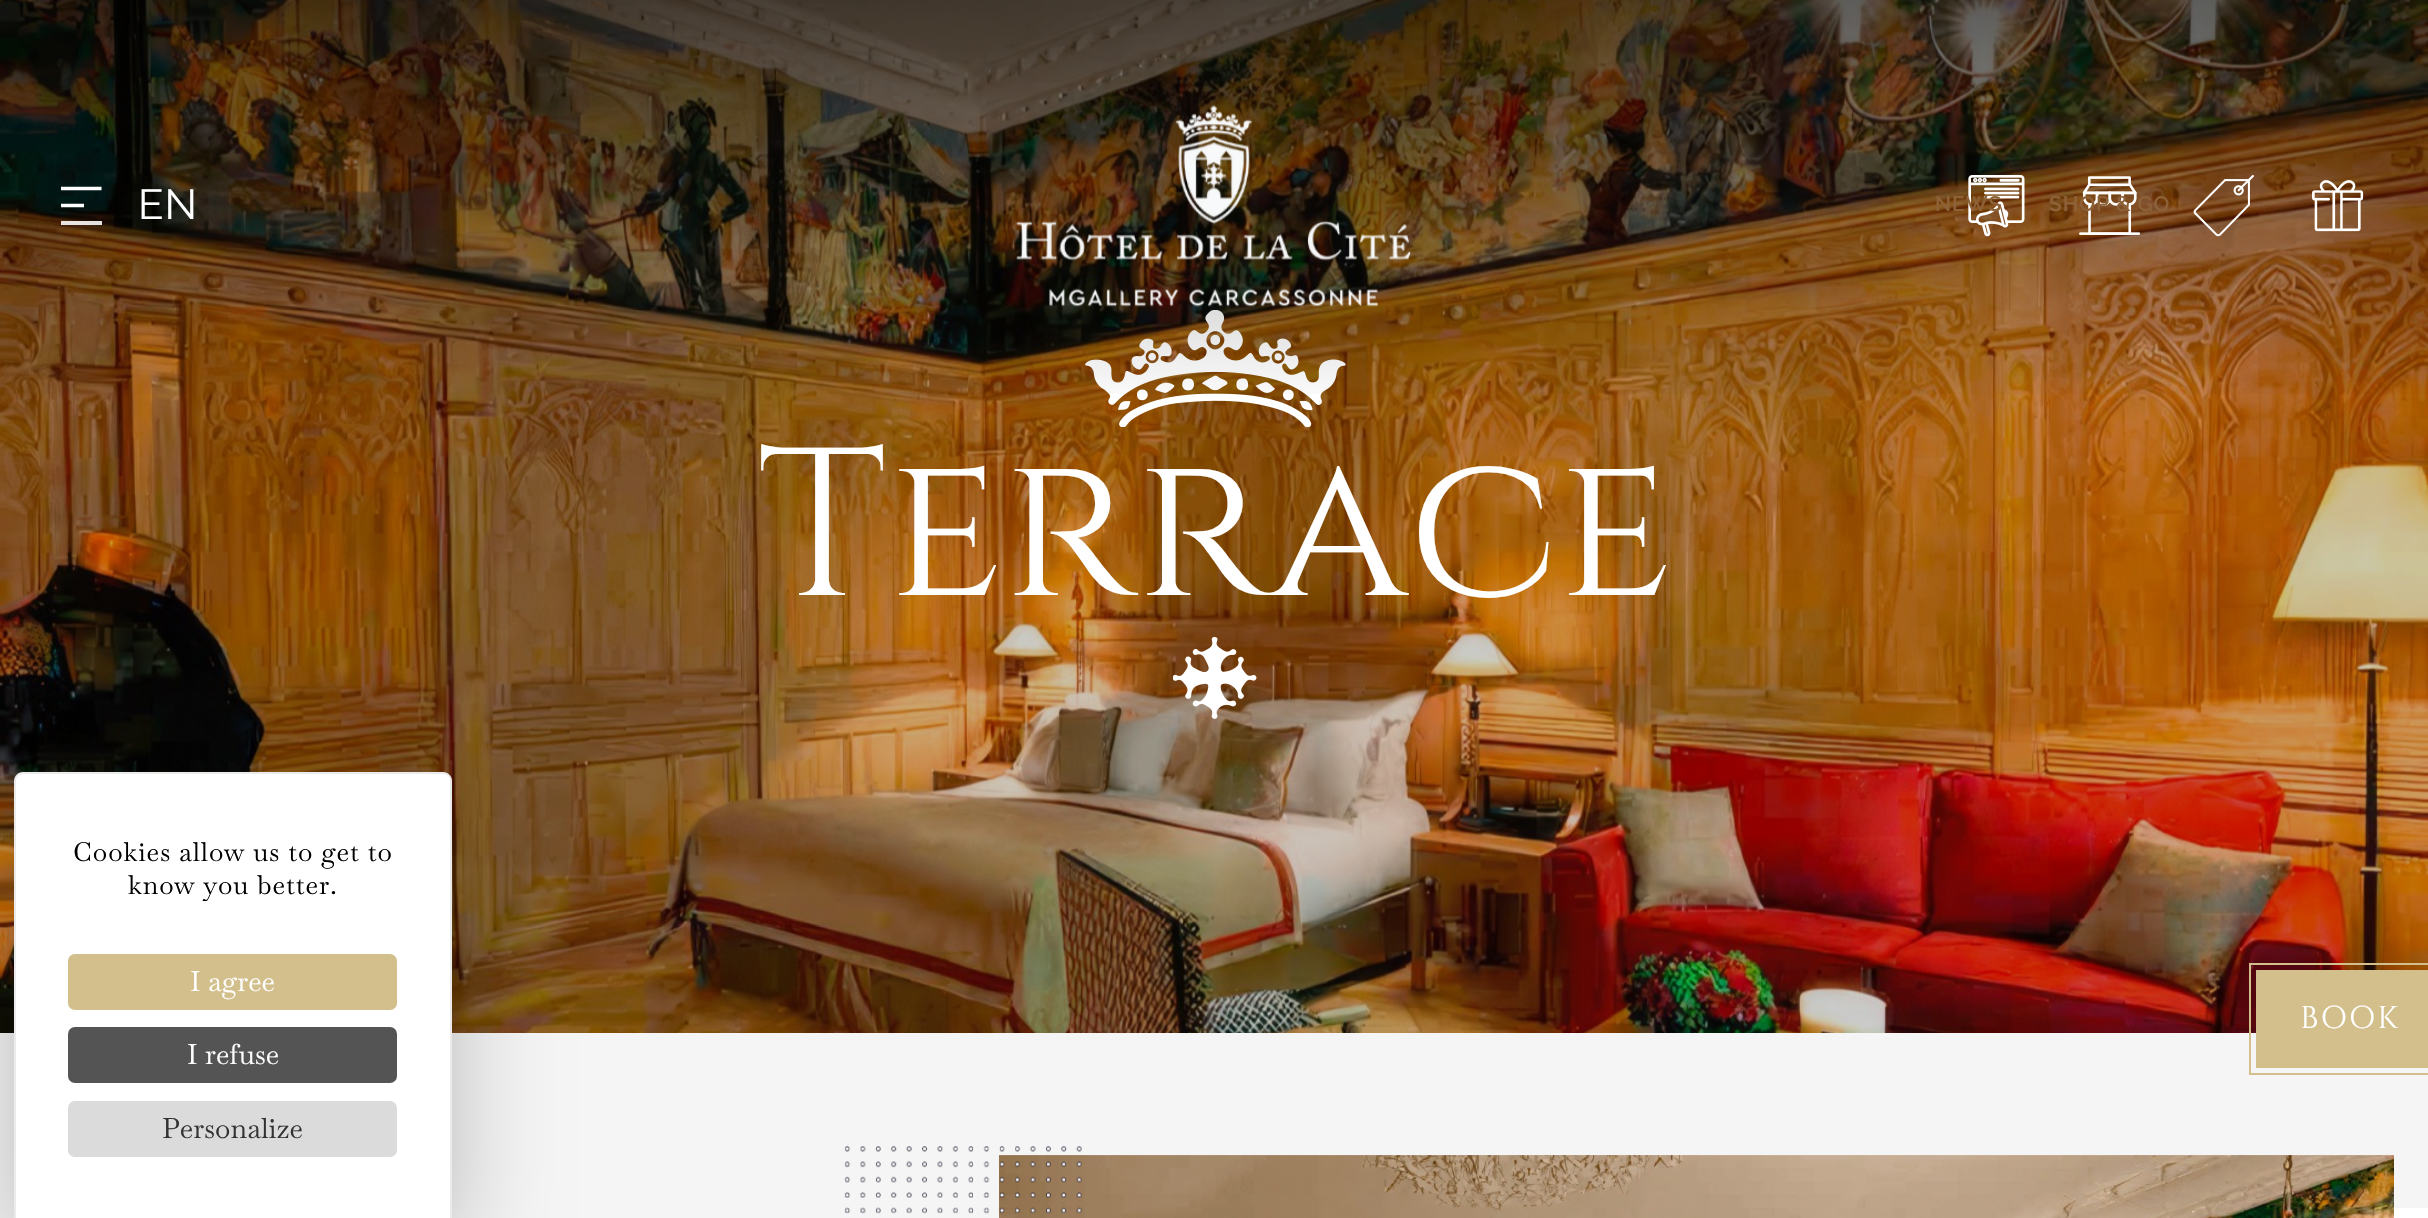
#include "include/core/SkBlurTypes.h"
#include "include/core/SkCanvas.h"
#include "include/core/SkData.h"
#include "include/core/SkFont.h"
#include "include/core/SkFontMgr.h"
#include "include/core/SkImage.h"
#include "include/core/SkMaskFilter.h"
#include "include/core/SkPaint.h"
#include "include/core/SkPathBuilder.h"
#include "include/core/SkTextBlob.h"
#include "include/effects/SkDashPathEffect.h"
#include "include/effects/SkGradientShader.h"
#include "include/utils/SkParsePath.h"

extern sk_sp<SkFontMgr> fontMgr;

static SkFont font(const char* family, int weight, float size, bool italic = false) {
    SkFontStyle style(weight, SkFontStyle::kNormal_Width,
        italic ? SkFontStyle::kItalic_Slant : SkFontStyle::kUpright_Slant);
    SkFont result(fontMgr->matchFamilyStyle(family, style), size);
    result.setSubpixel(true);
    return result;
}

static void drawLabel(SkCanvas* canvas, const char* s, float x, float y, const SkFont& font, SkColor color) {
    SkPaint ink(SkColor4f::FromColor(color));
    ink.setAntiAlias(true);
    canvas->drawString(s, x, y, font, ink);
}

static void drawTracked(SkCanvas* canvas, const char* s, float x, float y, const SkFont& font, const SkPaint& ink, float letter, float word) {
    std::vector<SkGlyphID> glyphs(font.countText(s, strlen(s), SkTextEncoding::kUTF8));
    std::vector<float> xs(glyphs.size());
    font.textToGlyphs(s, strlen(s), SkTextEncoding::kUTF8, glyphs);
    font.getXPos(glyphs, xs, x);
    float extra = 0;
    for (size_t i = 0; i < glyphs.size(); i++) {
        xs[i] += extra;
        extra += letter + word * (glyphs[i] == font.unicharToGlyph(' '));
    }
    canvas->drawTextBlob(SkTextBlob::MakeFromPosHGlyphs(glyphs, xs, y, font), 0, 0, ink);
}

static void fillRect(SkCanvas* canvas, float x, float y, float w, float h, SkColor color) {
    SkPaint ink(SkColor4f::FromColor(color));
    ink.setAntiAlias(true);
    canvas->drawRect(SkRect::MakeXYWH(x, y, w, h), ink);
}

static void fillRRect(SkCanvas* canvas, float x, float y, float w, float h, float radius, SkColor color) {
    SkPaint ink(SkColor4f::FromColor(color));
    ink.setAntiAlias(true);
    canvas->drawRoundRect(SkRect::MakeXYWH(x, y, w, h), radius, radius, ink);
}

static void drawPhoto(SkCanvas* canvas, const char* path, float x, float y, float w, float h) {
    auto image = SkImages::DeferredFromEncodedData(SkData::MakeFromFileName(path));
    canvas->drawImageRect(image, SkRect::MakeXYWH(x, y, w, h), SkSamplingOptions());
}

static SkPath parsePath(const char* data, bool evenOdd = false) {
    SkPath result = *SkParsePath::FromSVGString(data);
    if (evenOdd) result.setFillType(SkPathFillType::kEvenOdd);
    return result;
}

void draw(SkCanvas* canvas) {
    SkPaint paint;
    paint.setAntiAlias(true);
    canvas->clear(0xFFF5F5F5);
    drawPhoto(canvas, "assets/img6.png", 0, 0, 2428, 1033);
    drawPhoto(canvas, "assets/img7.png", 1085, 310, 261, 117);
    {
        const SkColor colors[] = {0x8A000000, 0x00000000};
        const float stops[] = {0, 1};
        const SkPoint ends[] = {{1215, 0}, {1215, 410}};
        paint.setShader(SkGradientShader::MakeLinear(ends, colors, stops, 2, SkTileMode::kClamp));
        paint.setAlpha(255);
    }
    canvas->drawRect(SkRect::MakeXYWH(0, 0, 2428, 394), paint);
    paint.setStroke(true);
    paint.setStrokeWidth(3.5f);
    paint.setShader(nullptr);
    paint.setColor(0xFFFFFFFF);
    canvas->drawPath(parsePath("M61 188.5H101.5M61 205.5H84"), paint);
    fillRect(canvas, 61, 221, 41, 4, 0xE0FFFFFF);
    SkFont font1 = font("Raleway", 400, 42);
    paint.setStroke(false);
    drawTracked(canvas, "EN", 138, 219, font1, paint, 0.9f, 0);
    drawPhoto(canvas, "assets/img1.png", 1968, 175, 57, 62);
    SkFont font2 = font("Raleway", 600, 21);
    paint.setColor(0xFF8D6238);
    drawTracked(canvas, "NEWS", 1935, 211, font2, paint, 0.9f, 0);
    drawPhoto(canvas, "assets/img2.png", 2079, 176, 61, 59);
    drawTracked(canvas, "SHOP & GO", 2049, 211, font2, paint, 0.9f, 0);
    drawPhoto(canvas, "assets/img3.png", 2193, 175, 61, 62);
    drawPhoto(canvas, "assets/img4.png", 2312, 180, 52, 52);
    drawPhoto(canvas, "assets/img5.png", 1016, 105, 396, 202);
    fillRect(canvas, 2256, 970, 172, 98, 0xFFD2BF8B);
    paint.setStroke(true);
    paint.setStrokeWidth(2);
    paint.setColor(0xFFD2BF8B);
    canvas->drawRect(SkRect::MakeXYWH(2250, 964, 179, 110), paint);
    SkFont font3 = font("Cinzel", 400, 31.5f);
    paint.setStroke(false);
    paint.setColor(0xFFFFFFFF);
    drawTracked(canvas, "BOOK", 2300, 1028, font3, paint, 2, 0);
    SkFont font4 = font("Cinzel", 400, 210);
    drawTracked(canvas, "Terrace", 757, 595, font4, paint, 0.9f, 0);
    drawPhoto(canvas, "assets/img8.png", 1173, 637, 84, 82);
    drawPhoto(canvas, "assets/img10.png", 999, 1155, 1, 1);
    drawPhoto(canvas, "assets/img11.png", 999, 1155, 1395, 63);
    drawPhoto(canvas, "assets/img9.png", 844, 1146, 238, 68);
    canvas->drawPath(parsePath("M1052 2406V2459H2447V1208H2394V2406Z"), paint);
    paint.setColor(0x40000000);
    paint.setMaskFilter(SkMaskFilter::MakeBlur(kNormal_SkBlurStyle, 52.5f));
    canvas->drawRoundRect(SkRect::MakeXYWH(14, 807, 438, 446), 9, 9, paint);
    paint.setMaskFilter(nullptr);
    paint.setColor(0xFFFFFFFF);
    canvas->drawPath(parsePath("M23 772H443C448 772 452 776 452 781V1218H14V781C14 776 18 772 23 772Z"), paint);
    paint.setColor(0x14000000);
    canvas->drawPath(parsePath("M23 772H443C448 772 452 776 452 780V1218H14V780C14 776 18 772 23 772ZM23 774H443C447 774 450 777 450 780V1218H16V780C16 777 19 774 23 774Z", true), paint);
    SkFont font5 = font("Baskervville", 400, 26.25f);
    paint.setColor(0xFF000000);
    drawTracked(canvas, "Cookies allow us to get to", 73, 861, font5, paint, 0.9f, 0);
    canvas->save();
    canvas->clipRect(SkRect::MakeXYWH(16, 835, 434, 66));
    drawTracked(canvas, "know you better.", 128, 894, font5, paint, 0.9f, 0);
    canvas->restore();
    fillRRect(canvas, 68, 954, 329, 56, 7, 0xFFD2BF8B);
    SkFont font6 = font("Baskervville", 400, 28);
    drawLabel(canvas, "I agree", 190, 991, font6, 0xFFFFFFFF);
    fillRRect(canvas, 68, 1027, 329, 56, 7, 0xFF545454);
    drawLabel(canvas, "I refuse", 187, 1064, font6, 0xFFFFFFFF);
    fillRRect(canvas, 68, 1101, 329, 56, 7, 0xFFDBDBDB);
    drawLabel(canvas, "Personalize", 162, 1138, font6, 0xFF333333);
}
